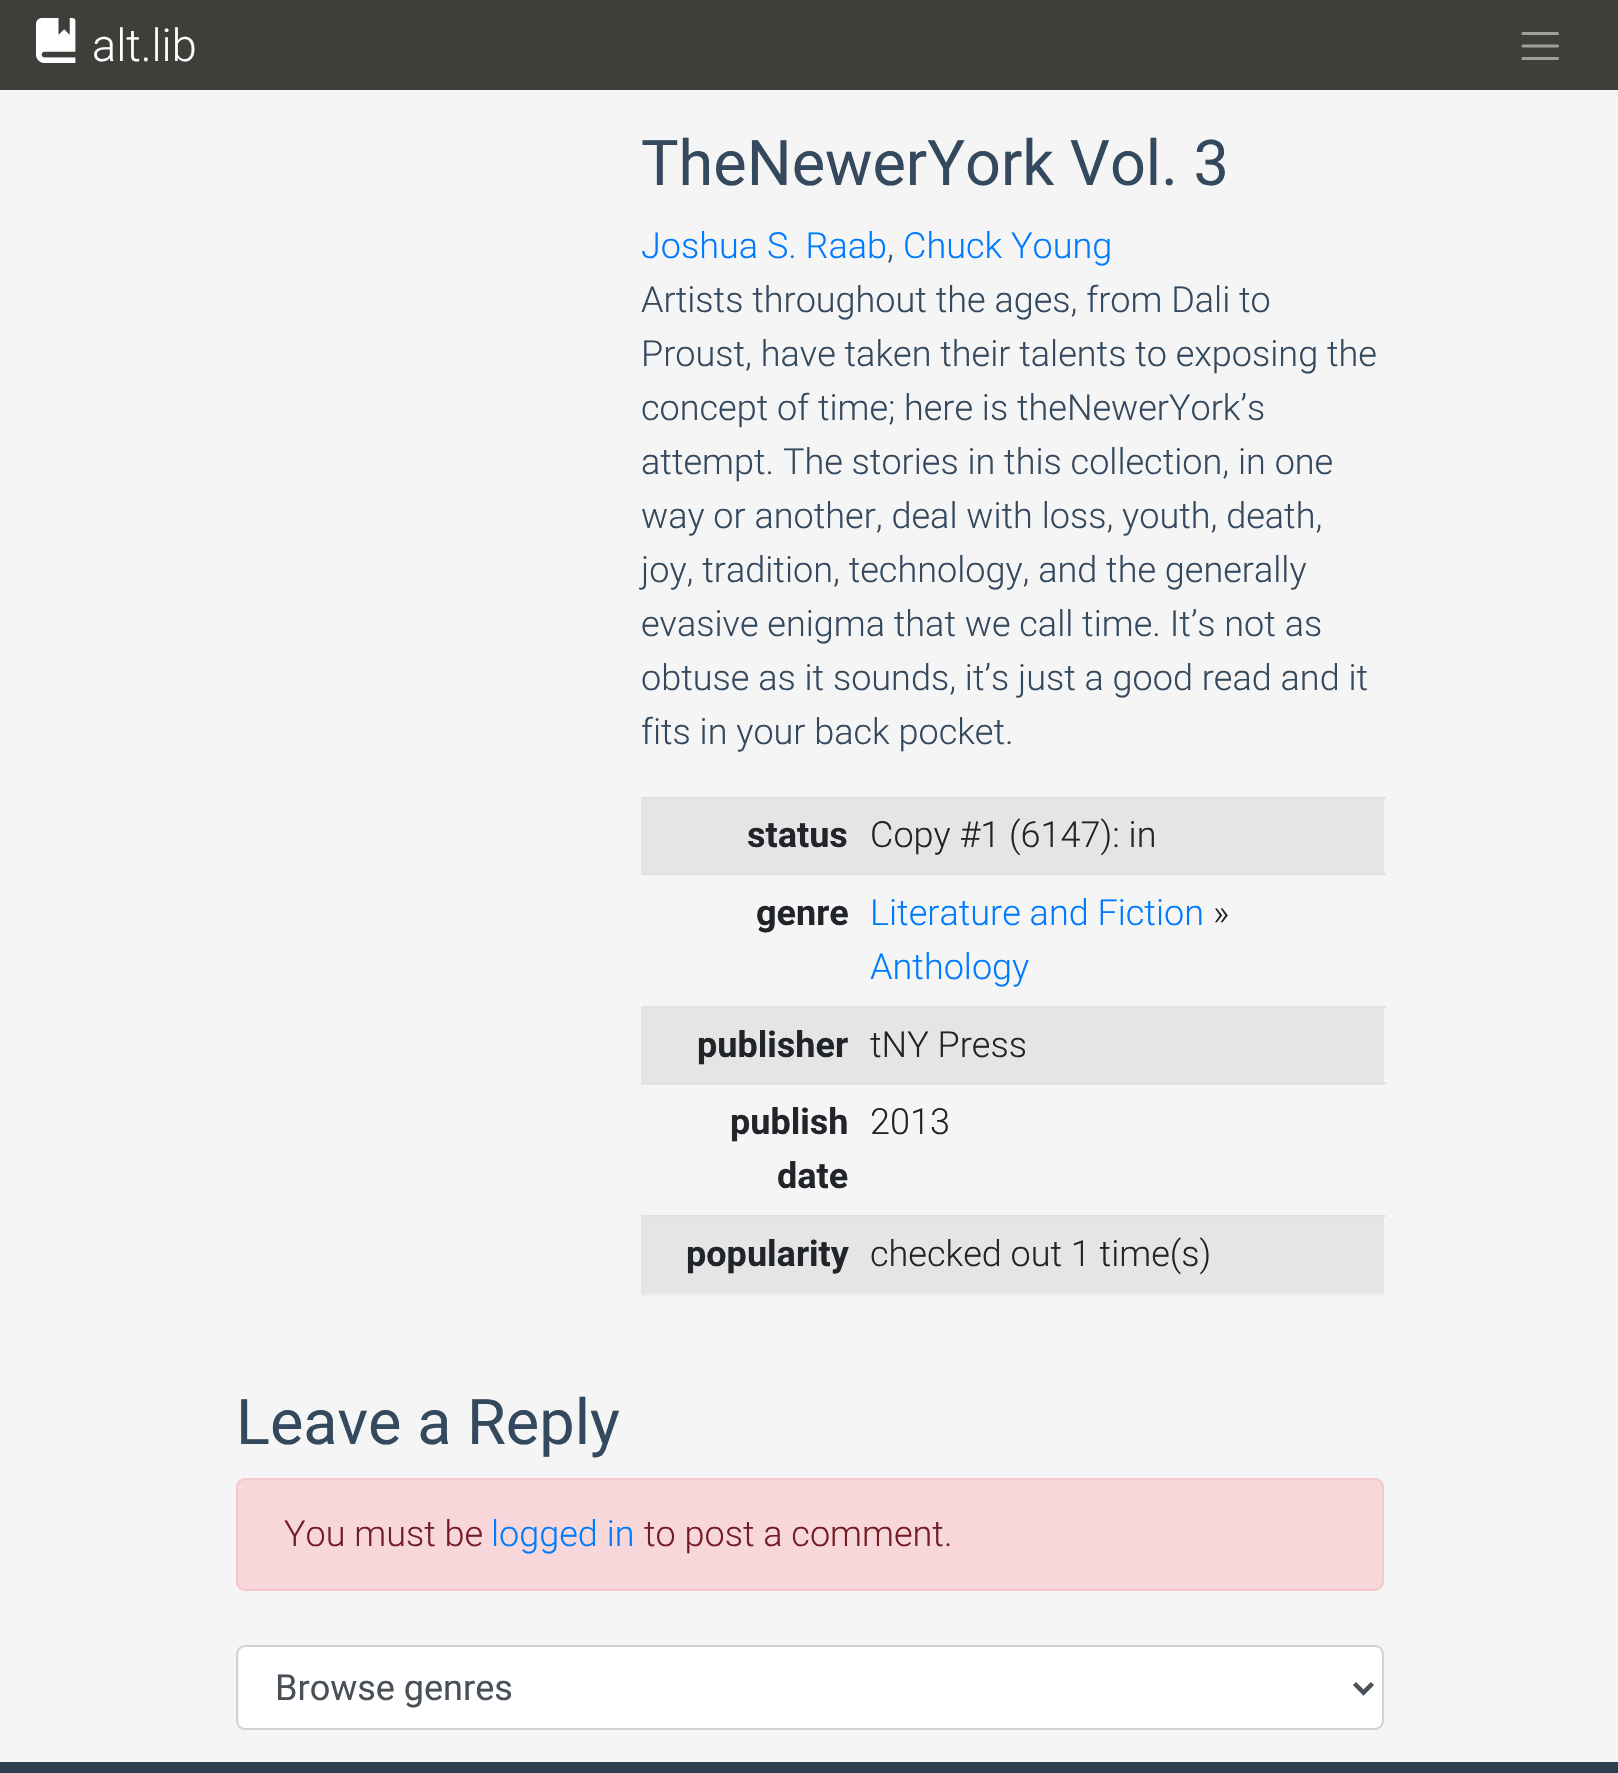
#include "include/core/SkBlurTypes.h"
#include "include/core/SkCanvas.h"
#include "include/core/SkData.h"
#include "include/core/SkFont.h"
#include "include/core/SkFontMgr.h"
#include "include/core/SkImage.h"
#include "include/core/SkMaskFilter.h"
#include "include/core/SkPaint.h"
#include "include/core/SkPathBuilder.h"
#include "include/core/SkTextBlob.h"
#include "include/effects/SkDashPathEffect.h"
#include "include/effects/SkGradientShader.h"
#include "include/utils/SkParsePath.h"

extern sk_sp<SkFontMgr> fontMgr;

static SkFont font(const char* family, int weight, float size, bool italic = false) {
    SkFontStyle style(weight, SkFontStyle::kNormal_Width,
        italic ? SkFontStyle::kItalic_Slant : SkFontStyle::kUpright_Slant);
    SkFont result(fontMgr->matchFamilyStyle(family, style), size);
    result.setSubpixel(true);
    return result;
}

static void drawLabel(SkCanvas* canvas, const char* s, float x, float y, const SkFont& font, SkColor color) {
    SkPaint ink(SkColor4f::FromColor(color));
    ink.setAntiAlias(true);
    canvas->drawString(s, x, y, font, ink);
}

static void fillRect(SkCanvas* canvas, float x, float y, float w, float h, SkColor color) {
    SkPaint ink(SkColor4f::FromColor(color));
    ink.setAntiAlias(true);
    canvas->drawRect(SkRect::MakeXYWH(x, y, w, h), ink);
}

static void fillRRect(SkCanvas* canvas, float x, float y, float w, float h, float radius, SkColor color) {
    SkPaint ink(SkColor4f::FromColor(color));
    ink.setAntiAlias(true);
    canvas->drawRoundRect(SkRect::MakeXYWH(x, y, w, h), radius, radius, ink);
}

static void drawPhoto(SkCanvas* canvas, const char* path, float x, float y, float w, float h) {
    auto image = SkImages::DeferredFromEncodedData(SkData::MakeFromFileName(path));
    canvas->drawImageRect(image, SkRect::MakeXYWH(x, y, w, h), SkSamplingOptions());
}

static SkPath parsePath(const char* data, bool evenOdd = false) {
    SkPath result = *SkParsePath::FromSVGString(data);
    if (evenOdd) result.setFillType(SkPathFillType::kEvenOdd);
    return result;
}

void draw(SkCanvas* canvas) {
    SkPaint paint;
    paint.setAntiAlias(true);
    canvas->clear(0xFFF5F5F5);
    fillRect(canvas, 0, 0, 1618, 90, 0xFF3E3F3A);
    drawPhoto(canvas, "assets/img1.png", 36, 18, 40, 45);
    SkFont font1 = font("Roboto", 300, 45);
    drawLabel(canvas, "alt.lib", 92, 61, font1, 0xFFFFFFFF);
    paint.setStroke(true);
    paint.setStrokeWidth(3.1f);
    paint.setStrokeCap(SkPaint::kRound_Cap);
    paint.setColor(0xFF9F9F9D);
    canvas->drawPath(parsePath("M1523 33.5H1557.5M1523 46H1557.5M1523 58.5H1557.5"), paint);
    SkFont font2 = font("Roboto", 400, 63);
    drawLabel(canvas, "TheNewerYork Vol. 3", 641, 185, font2, 0xFF34495E);
    SkFont font3 = font("Roboto", 300, 36);
    drawLabel(canvas, "Joshua S. Raab", 641, 258, font3, 0xFF007BFF);
    drawLabel(canvas, ",", 887, 258, font3, 0xFF34495E);
    drawLabel(canvas, "Chuck Young", 903, 258, font3, 0xFF007BFF);
    drawLabel(canvas, "Artists throughout the ages, from Dali to", 641, 312, font3, 0xFF34495E);
    drawLabel(canvas, "Proust, have taken their talents to exposing the", 641, 366, font3, 0xFF34495E);
    drawLabel(canvas, "concept of time; here is theNewerYork’s", 641, 420, font3, 0xFF34495E);
    drawLabel(canvas, "attempt. The stories in this collection, in one", 641, 474, font3, 0xFF34495E);
    drawLabel(canvas, "way or another, deal with loss, youth, death,", 641, 528, font3, 0xFF34495E);
    drawLabel(canvas, "joy, tradition, technology, and the generally", 641, 582, font3, 0xFF34495E);
    drawLabel(canvas, "evasive enigma that we call time. It’s not as", 641, 636, font3, 0xFF34495E);
    drawLabel(canvas, "obtuse as it sounds, it’s just a good read and it", 641, 690, font3, 0xFF34495E);
    drawLabel(canvas, "fits in your back pocket.", 641, 744, font3, 0xFF34495E);
    fillRect(canvas, 641, 799, 743, 74, 0xFFE5E5E5);
    SkFont font4 = font("Roboto", 700, 36);
    drawLabel(canvas, "status", 747, 847, font4, 0xFF212529);
    fillRect(canvas, 641, 797, 745, 2, 0xFFDEE2E6);
    drawLabel(canvas, "Copy #1 (6147): in", 870, 847, font3, 0xFF212529);
    drawLabel(canvas, "genre", 756, 925, font4, 0xFF212529);
    fillRect(canvas, 641, 873, 745, 2, 0xFFDEE2E6);
    drawLabel(canvas, "Literature and Fiction", 870, 925, font3, 0xFF007BFF);
    drawLabel(canvas, "»", 1213, 925, font3, 0xFF212529);
    drawLabel(canvas, "Anthology", 870, 979, font3, 0xFF007BFF);
    fillRect(canvas, 641, 1008, 743, 77, 0xFFE5E5E5);
    drawLabel(canvas, "publisher", 697, 1057, font4, 0xFF212529);
    fillRect(canvas, 641, 1006, 745, 2, 0xFFDEE2E6);
    drawLabel(canvas, "tNY Press", 870, 1057, font3, 0xFF212529);
    drawLabel(canvas, "publish", 730, 1134, font4, 0xFF212529);
    drawLabel(canvas, "date", 777, 1188, font4, 0xFF212529);
    fillRect(canvas, 641, 1082, 745, 2, 0xFFDEE2E6);
    drawLabel(canvas, "2013", 870, 1134, font3, 0xFF212529);
    fillRect(canvas, 641, 1217, 743, 77, 0xFFE5E5E5);
    fillRect(canvas, 641, 1294, 745, 2, 0xFFEEEEEE);
    drawLabel(canvas, "popularity", 686, 1266, font4, 0xFF212529);
    fillRect(canvas, 641, 1215, 745, 2, 0xFFDEE2E6);
    drawLabel(canvas, "checked out 1 time(s)", 870, 1266, font3, 0xFF212529);
    drawLabel(canvas, "Leave a Reply", 236, 1444, font2, 0xFF34495E);
    paint.setStroke(false);
    paint.setColor(0xFFF8D7DA);
    canvas->drawRoundRect(SkRect::MakeXYWH(237, 1479, 1146, 111), 8, 8, paint);
    paint.setStroke(true);
    paint.setStrokeWidth(2);
    paint.setStrokeCap(SkPaint::kButt_Cap);
    paint.setColor(0xFFF5C6CB);
    canvas->drawRoundRect(SkRect::MakeXYWH(237, 1479, 1146, 111), 8, 8, paint);
    drawLabel(canvas, "You must be", 284, 1546, font3, 0xFF721C24);
    drawLabel(canvas, "logged in", 491, 1546, font3, 0xFF007BFF);
    drawLabel(canvas, "to post a comment.", 644, 1546, font3, 0xFF721C24);
    fillRRect(canvas, 239, 1647, 1143, 81, 7, 0xFFFFFFFF);
    paint.setColor(0xFFCED4DA);
    canvas->drawRoundRect(SkRect::MakeXYWH(237, 1646, 1146, 83), 8, 8, paint);
    paint.setStrokeWidth(4.5f);
    paint.setColor(0xFF495057);
    canvas->drawPath(parsePath("M1354.5 1683.5L1363.5 1692.5L1372.5 1683.5"), paint);
    SkFont font5 = font("Roboto", 400, 36);
    drawLabel(canvas, "Browse genres", 275, 1700, font5, 0xFF495057);
    fillRect(canvas, 0, 1762, 1618, 11, 0xFF2C3E50);
}
